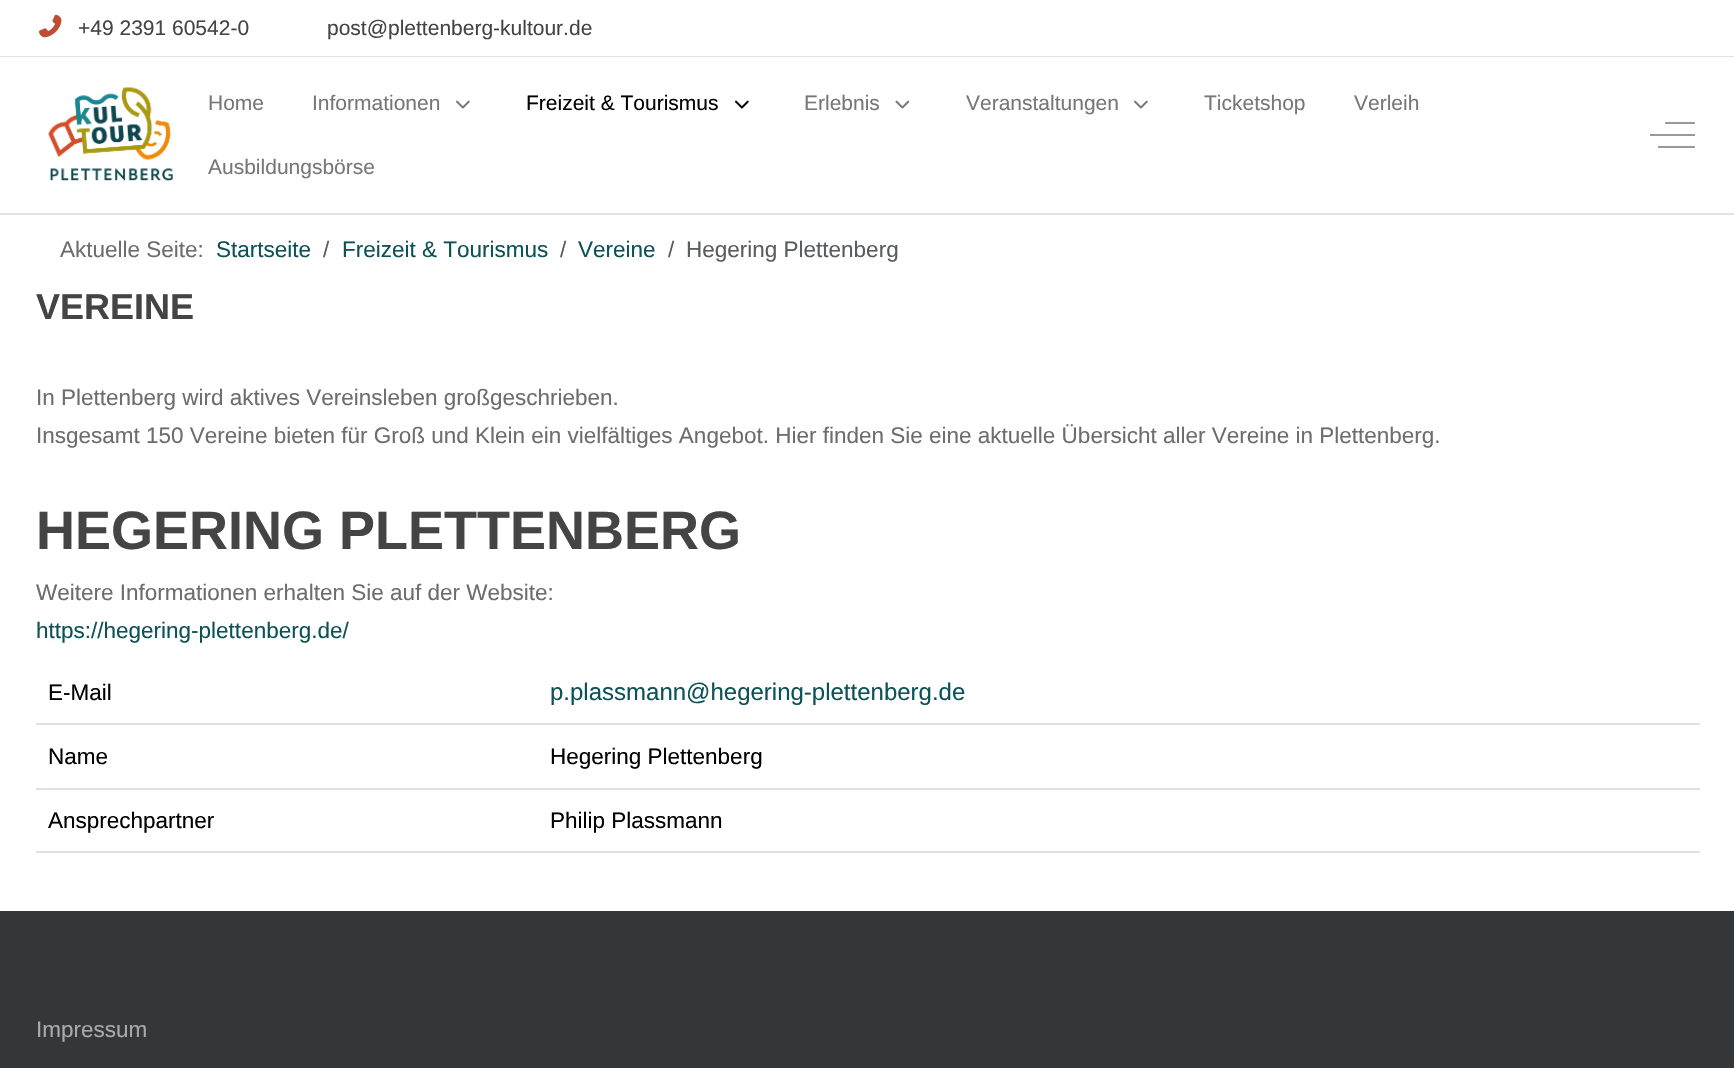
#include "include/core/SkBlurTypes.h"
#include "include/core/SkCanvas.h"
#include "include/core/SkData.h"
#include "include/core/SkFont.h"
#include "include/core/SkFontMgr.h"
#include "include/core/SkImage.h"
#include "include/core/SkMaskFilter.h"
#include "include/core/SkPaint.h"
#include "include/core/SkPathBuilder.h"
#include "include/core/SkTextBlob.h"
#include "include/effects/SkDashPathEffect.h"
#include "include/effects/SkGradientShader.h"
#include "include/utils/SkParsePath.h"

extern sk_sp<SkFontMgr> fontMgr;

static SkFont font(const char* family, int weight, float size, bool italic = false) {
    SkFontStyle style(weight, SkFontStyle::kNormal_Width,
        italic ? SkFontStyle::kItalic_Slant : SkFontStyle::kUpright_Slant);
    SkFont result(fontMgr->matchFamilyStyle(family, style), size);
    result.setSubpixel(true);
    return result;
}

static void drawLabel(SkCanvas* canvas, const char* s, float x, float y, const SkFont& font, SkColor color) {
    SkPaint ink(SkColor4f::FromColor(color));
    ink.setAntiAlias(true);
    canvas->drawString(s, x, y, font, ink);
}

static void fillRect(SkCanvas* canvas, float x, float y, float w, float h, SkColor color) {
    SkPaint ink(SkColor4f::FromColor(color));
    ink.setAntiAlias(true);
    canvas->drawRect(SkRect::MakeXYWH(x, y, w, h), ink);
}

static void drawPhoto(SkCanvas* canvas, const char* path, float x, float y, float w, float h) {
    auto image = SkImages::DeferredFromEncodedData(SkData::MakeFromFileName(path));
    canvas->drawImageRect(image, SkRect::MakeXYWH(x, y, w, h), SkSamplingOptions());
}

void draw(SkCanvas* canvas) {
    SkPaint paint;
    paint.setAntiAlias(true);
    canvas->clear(0xFFFFFFFF);
    fillRect(canvas, 0, 56, 1734, 1, 0xFFE2E2E2);
    drawPhoto(canvas, "assets/img1.png", 39, 14, 23, 24);
    SkFont font1 = font("Liberation Sans", 400, 21);
    drawLabel(canvas, "+49 2391 60542-0", 78, 35, font1, 0xFF444444);
    drawLabel(canvas, "post@plettenberg-kultour.de", 327, 35, font1, 0xFF444444);
    fillRect(canvas, 0, 213, 1734, 2, 0xFFE2E2E2);
    drawPhoto(canvas, "assets/img2.png", 47, 87, 126, 94);
    drawLabel(canvas, "Home", 208, 110, font1, 0xFF777777);
    drawLabel(canvas, "Informationen", 312, 110, font1, 0xFF777777);
    drawPhoto(canvas, "assets/img3.png", 456, 100, 14, 9);
    drawLabel(canvas, "Freizeit & Tourismus", 526, 110, font1, 0xFF000000);
    drawPhoto(canvas, "assets/img4.png", 735, 100, 14, 9);
    drawLabel(canvas, "Erlebnis", 804, 110, font1, 0xFF777777);
    drawPhoto(canvas, "assets/img5.png", 895, 100, 15, 9);
    drawLabel(canvas, "Veranstaltungen", 966, 110, font1, 0xFF777777);
    drawPhoto(canvas, "assets/img3.png", 1134, 100, 14, 9);
    drawLabel(canvas, "Ticketshop", 1204, 110, font1, 0xFF777777);
    drawLabel(canvas, "Verleih", 1354, 110, font1, 0xFF777777);
    drawLabel(canvas, "Ausbildungsbörse", 208, 174, font1, 0xFF777777);
    fillRect(canvas, 1650, 134, 45, 2, 0xFF999999);
    fillRect(canvas, 1665, 122, 30, 2, 0xFF999999);
    fillRect(canvas, 1658, 146, 37, 2, 0xFF999999);
    SkFont font2 = font("Liberation Sans", 400, 22.5f);
    drawLabel(canvas, "Aktuelle Seite:", 60, 257, font2, 0xFF6D6D6D);
    drawLabel(canvas, "Startseite", 216, 257, font2, 0xFF0D5257);
    drawLabel(canvas, "/", 323, 257, font2, 0xFF595C5F);
    drawLabel(canvas, "Freizeit & Tourismus", 342, 257, font2, 0xFF0D5257);
    drawLabel(canvas, "/", 560, 257, font2, 0xFF595C5F);
    drawLabel(canvas, "Vereine", 578, 257, font2, 0xFF0D5257);
    drawLabel(canvas, "/", 668, 257, font2, 0xFF595C5F);
    drawLabel(canvas, "Hegering Plettenberg", 686, 257, font2, 0xFF595C5F);
    SkFont font3 = font("Liberation Sans", 700, 36);
    drawLabel(canvas, "VEREINE", 36, 319, font3, 0xFF444444);
    drawLabel(canvas, "In Plettenberg wird aktives Vereinsleben großgeschrieben.", 36, 405, font2, 0xFF6D6D6D);
    drawLabel(canvas, "Insgesamt 150 Vereine bieten für Groß und Klein ein vielfältiges Angebot. Hier finden Sie eine aktuelle Übersicht aller Vereine in Plettenberg.", 36, 443, font2, 0xFF6D6D6D);
    SkFont font4 = font("Liberation Sans", 700, 54);
    drawLabel(canvas, "HEGERING PLETTENBERG", 36, 549, font4, 0xFF444444);
    drawLabel(canvas, "Weitere Informationen erhalten Sie auf der Website:", 36, 600, font2, 0xFF6D6D6D);
    drawLabel(canvas, "https://hegering-plettenberg.de/", 36, 638, font2, 0xFF0D5257);
    drawLabel(canvas, "E-Mail", 48, 700, font2, 0xFF000000);
    fillRect(canvas, 36, 723, 1664, 2, 0xFFDEE2E6);
    SkFont font5 = font("Liberation Sans", 400, 24);
    drawLabel(canvas, "p.plassmann@hegering-plettenberg.de", 550, 700, font5, 0xFF0D5257);
    drawLabel(canvas, "Name", 48, 764, font2, 0xFF000000);
    fillRect(canvas, 36, 788, 1664, 2, 0xFFDEE2E6);
    drawLabel(canvas, "Hegering Plettenberg", 550, 764, font2, 0xFF000000);
    drawLabel(canvas, "Ansprechpartner", 48, 828, font2, 0xFF000000);
    fillRect(canvas, 36, 851, 1664, 2, 0xFFDEE2E6);
    drawLabel(canvas, "Philip Plassmann", 550, 828, font2, 0xFF000000);
    fillRect(canvas, 0, 911, 1734, 157, 0xFF34373A);
    drawLabel(canvas, "Impressum", 36, 1037, font2, 0xFFAAAAAA);
}
